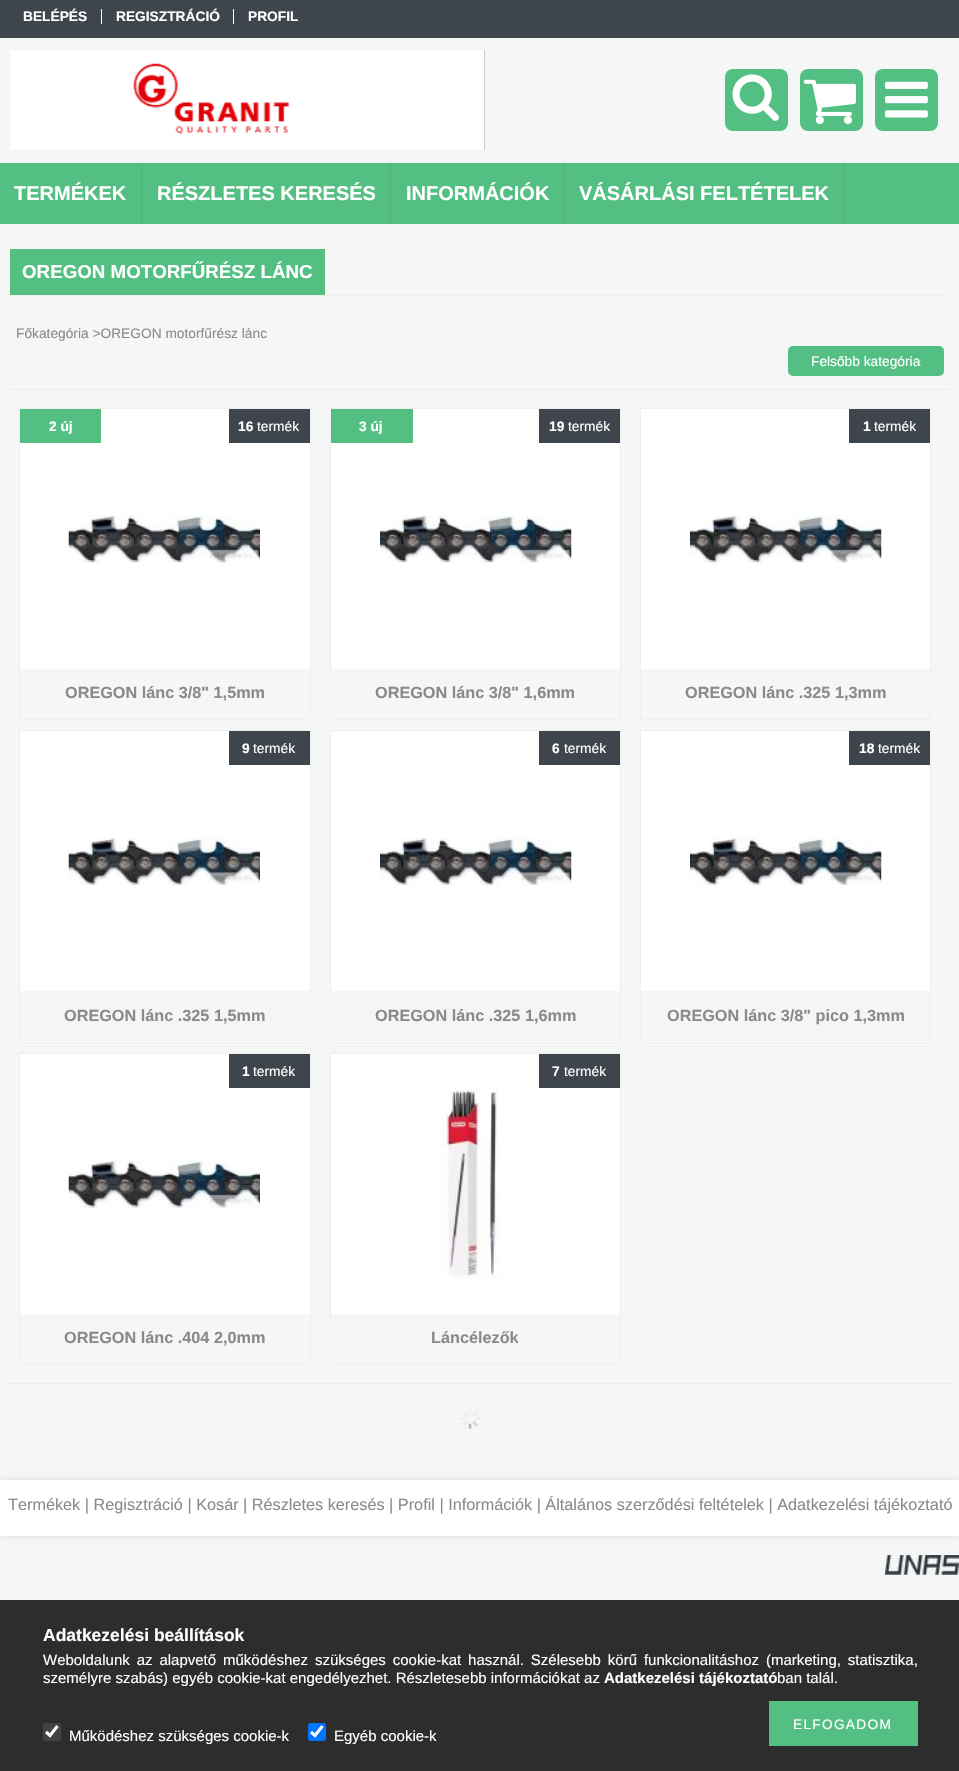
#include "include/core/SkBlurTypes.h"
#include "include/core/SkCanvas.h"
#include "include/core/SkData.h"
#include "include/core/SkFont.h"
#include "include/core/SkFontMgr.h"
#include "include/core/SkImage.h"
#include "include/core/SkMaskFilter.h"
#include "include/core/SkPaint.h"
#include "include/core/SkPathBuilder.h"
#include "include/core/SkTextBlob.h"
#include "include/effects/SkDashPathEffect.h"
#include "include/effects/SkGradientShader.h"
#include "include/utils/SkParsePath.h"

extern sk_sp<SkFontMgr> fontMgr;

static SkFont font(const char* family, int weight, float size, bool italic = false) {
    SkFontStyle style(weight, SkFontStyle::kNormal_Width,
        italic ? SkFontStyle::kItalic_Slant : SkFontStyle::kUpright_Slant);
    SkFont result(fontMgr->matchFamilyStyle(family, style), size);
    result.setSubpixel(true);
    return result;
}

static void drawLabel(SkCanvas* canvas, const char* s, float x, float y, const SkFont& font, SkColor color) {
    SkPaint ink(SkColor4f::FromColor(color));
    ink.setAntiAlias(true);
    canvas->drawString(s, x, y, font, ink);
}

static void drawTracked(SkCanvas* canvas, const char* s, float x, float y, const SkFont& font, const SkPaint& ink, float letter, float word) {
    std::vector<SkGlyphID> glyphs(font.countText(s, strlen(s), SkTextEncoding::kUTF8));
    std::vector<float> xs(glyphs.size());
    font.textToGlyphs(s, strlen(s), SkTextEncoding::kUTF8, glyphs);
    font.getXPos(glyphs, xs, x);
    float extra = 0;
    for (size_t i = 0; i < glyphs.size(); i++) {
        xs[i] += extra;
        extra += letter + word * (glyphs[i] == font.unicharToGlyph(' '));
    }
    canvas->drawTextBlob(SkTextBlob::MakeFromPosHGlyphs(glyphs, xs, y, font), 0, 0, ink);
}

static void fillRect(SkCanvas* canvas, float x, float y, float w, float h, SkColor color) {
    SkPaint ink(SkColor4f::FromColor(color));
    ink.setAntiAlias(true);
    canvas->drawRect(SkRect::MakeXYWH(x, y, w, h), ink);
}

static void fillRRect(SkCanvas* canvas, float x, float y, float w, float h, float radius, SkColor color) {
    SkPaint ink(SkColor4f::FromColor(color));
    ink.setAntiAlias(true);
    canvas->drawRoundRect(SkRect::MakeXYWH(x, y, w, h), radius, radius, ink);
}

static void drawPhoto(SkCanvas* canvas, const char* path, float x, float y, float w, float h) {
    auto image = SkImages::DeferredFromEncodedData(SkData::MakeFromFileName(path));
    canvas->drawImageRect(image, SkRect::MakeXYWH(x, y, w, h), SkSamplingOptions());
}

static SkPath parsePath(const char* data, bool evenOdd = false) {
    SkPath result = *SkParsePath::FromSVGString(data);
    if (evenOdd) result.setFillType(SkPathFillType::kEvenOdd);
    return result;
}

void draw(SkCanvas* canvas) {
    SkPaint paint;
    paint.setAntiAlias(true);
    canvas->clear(0xFFF5F6F6);
    fillRect(canvas, 0, 0, 959, 38, 0xFF3E454C);
    SkFont font1 = font("Liberation Sans", 700, 13.75f);
    drawLabel(canvas, "BELÉPÉS", 23, 21, font1, 0xFFFFFFFF);
    fillRect(canvas, 101, 9, 1, 15, 0xFFFFFFFF);
    drawLabel(canvas, "REGISZTRÁCIÓ", 116, 21, font1, 0xFFFFFFFF);
    fillRect(canvas, 233, 9, 1, 15, 0xFFFFFFFF);
    drawLabel(canvas, "PROFIL", 248, 21, font1, 0xFFFFFFFF);
    drawPhoto(canvas, "assets/img1.png", 10, 50, 474, 100);
    fillRect(canvas, 484, 50, 1, 100, 0xFFCDCDCD);
    fillRRect(canvas, 725, 69, 63, 62, 8, 0xFF54BF83);
    drawPhoto(canvas, "assets/img2.png", 732, 74, 47, 47);
    fillRRect(canvas, 800, 69, 63, 62, 8, 0xFF54BF83);
    drawPhoto(canvas, "assets/img3.png", 803, 79, 53, 45);
    fillRRect(canvas, 875, 69, 63, 62, 8, 0xFF54BF83);
    drawPhoto(canvas, "assets/img4.png", 885, 81, 43, 37);
    fillRect(canvas, 0, 163, 959, 61, 0xFF54BF83);
    fillRect(canvas, 141, 163, 1, 61, 0x12000000);
    SkFont font2 = font("Liberation Sans", 700, 20);
    drawLabel(canvas, "TERMÉKEK", 14, 200, font2, 0xFFFFFFFF);
    fillRect(canvas, 390, 163, 1, 61, 0x12000000);
    drawLabel(canvas, "RÉSZLETES KERESÉS", 157, 200, font2, 0xFFFFFFFF);
    fillRect(canvas, 564, 163, 1, 61, 0x12000000);
    drawLabel(canvas, "INFORMÁCIÓK", 406, 200, font2, 0xFFFFFFFF);
    fillRect(canvas, 844, 163, 1, 61, 0x12000000);
    drawLabel(canvas, "VÁSÁRLÁSI FELTÉTELEK", 579, 200, font2, 0xFFFFFFFF);
    fillRect(canvas, 10, 295, 940, 1, 0xFFEFEFEF);
    fillRect(canvas, 10, 249, 315, 46, 0xFF54BF83);
    SkFont font3 = font("Liberation Sans", 700, 18.75f);
    drawLabel(canvas, "OREGON MOTORFŰRÉSZ LÁNC", 22, 278, font3, 0xFFFFFFFF);
    SkFont font4 = font("Liberation Sans", 400, 13.75f);
    drawLabel(canvas, "Főkategória >OREGON motorfűrész lánc", 16, 338, font4, 0xFF8B8A8A);
    fillRRect(canvas, 788, 346, 156, 30, 5, 0xFF54BF83);
    drawLabel(canvas, "Felsőbb kategória", 811, 366, font4, 0xFFFFFFFF);
    fillRect(canvas, 10, 389, 940, 1, 0xFFECEAEA);
    fillRect(canvas, 20, 409, 290, 260, 0xFFFFFFFF);
    paint.setStroke(true);
    paint.setStrokeWidth(1);
    paint.setColor(0xFFEFEFEF);
    canvas->drawRect(SkRect::MakeXYWH(19.5f, 408.5f, 291, 311), paint);
    fillRect(canvas, 20, 409, 81, 34, 0xFF54BF83);
    drawLabel(canvas, "2 új", 49, 431, font1, 0xFFFFFFFF);
    fillRect(canvas, 229, 409, 81, 34, 0xFF3E454C);
    drawLabel(canvas, "16", 238, 431, font1, 0xFFFFFFFF);
    drawLabel(canvas, "termék", 257, 431, font4, 0xFFFFFFFF);
    drawPhoto(canvas, "assets/img5.png", 68, 515, 192, 48);
    SkFont font5 = font("Liberation Sans", 700, 16.25f);
    drawLabel(canvas, "OREGON lánc 3/8\" 1,5mm", 65, 698, font5, 0xFF8B8A8A);
    fillRect(canvas, 331, 409, 289, 260, 0xFFFFFFFF);
    canvas->drawRect(SkRect::MakeXYWH(330.5f, 408.5f, 290, 311), paint);
    fillRect(canvas, 331, 409, 82, 34, 0xFF54BF83);
    drawLabel(canvas, "3 új", 359, 431, font1, 0xFFFFFFFF);
    fillRect(canvas, 539, 409, 81, 34, 0xFF3E454C);
    drawLabel(canvas, "19", 549, 431, font1, 0xFFFFFFFF);
    drawLabel(canvas, "termék", 568, 431, font4, 0xFFFFFFFF);
    drawPhoto(canvas, "assets/img6.png", 380, 515, 192, 48);
    drawLabel(canvas, "OREGON lánc 3/8\" 1,6mm", 375, 698, font5, 0xFF8B8A8A);
    fillRect(canvas, 641, 409, 289, 260, 0xFFFFFFFF);
    canvas->drawRect(SkRect::MakeXYWH(640.5f, 408.5f, 290, 311), paint);
    fillRect(canvas, 849, 409, 81, 34, 0xFF3E454C);
    drawLabel(canvas, "1", 863, 431, font1, 0xFFFFFFFF);
    drawLabel(canvas, "termék", 874, 431, font4, 0xFFFFFFFF);
    drawPhoto(canvas, "assets/img7.png", 690, 515, 192, 48);
    drawLabel(canvas, "OREGON lánc .325 1,3mm", 685, 698, font5, 0xFF8B8A8A);
    paint.setStroke(false);
    paint.setColor(0xFFFFFFFF);
    canvas->drawRect(SkRect::MakeXYWH(19.5f, 730.5f, 291, 312), paint);
    paint.setStroke(true);
    paint.setColor(0xFFEFEFEF);
    canvas->drawRect(SkRect::MakeXYWH(19.5f, 730.5f, 291, 312), paint);
    fillRect(canvas, 229, 731, 81, 34, 0xFF3E454C);
    drawLabel(canvas, "9", 242, 753, font1, 0xFFFFFFFF);
    drawLabel(canvas, "termék", 253, 753, font4, 0xFFFFFFFF);
    drawPhoto(canvas, "assets/img8.png", 68, 837, 192, 48);
    fillRect(canvas, 20, 991, 290, 50, 0xFFF5F5F5);
    drawLabel(canvas, "OREGON lánc .325 1,5mm", 64, 1021, font5, 0xFF8B8A8A);
    paint.setStroke(false);
    paint.setColor(0xFFFFFFFF);
    canvas->drawRect(SkRect::MakeXYWH(330.5f, 730.5f, 290, 312), paint);
    paint.setStroke(true);
    paint.setColor(0xFFEFEFEF);
    canvas->drawRect(SkRect::MakeXYWH(330.5f, 730.5f, 290, 312), paint);
    fillRect(canvas, 539, 731, 81, 34, 0xFF3E454C);
    drawLabel(canvas, "6", 552, 753, font1, 0xFFFFFFFF);
    drawLabel(canvas, "termék", 564, 753, font4, 0xFFFFFFFF);
    drawPhoto(canvas, "assets/img9.png", 380, 837, 192, 48);
    fillRect(canvas, 331, 991, 289, 50, 0xFFF5F5F5);
    drawLabel(canvas, "OREGON lánc .325 1,6mm", 375, 1021, font5, 0xFF8B8A8A);
    paint.setStroke(false);
    paint.setColor(0xFFFFFFFF);
    canvas->drawRect(SkRect::MakeXYWH(640.5f, 730.5f, 290, 312), paint);
    paint.setStroke(true);
    paint.setColor(0xFFEFEFEF);
    canvas->drawRect(SkRect::MakeXYWH(640.5f, 730.5f, 290, 312), paint);
    fillRect(canvas, 849, 731, 81, 34, 0xFF3E454C);
    drawLabel(canvas, "18", 859, 753, font1, 0xFFFFFFFF);
    drawLabel(canvas, "termék", 878, 753, font4, 0xFFFFFFFF);
    drawPhoto(canvas, "assets/img10.png", 690, 837, 192, 48);
    fillRect(canvas, 641, 991, 289, 50, 0xFFF5F5F5);
    drawLabel(canvas, "OREGON lánc 3/8\" pico 1,3mm", 667, 1021, font5, 0xFF8B8A8A);
    fillRect(canvas, 20, 1054, 290, 260, 0xFFFFFFFF);
    canvas->drawRect(SkRect::MakeXYWH(19.5f, 1053.5f, 291, 311), paint);
    fillRect(canvas, 229, 1054, 81, 34, 0xFF3E454C);
    drawLabel(canvas, "1", 242, 1076, font1, 0xFFFFFFFF);
    drawLabel(canvas, "termék", 253, 1076, font4, 0xFFFFFFFF);
    drawPhoto(canvas, "assets/img11.png", 68, 1160, 192, 48);
    drawLabel(canvas, "OREGON lánc .404 2,0mm", 64, 1343, font5, 0xFF8B8A8A);
    fillRect(canvas, 331, 1054, 289, 260, 0xFFFFFFFF);
    canvas->drawRect(SkRect::MakeXYWH(330.5f, 1053.5f, 290, 311), paint);
    fillRect(canvas, 539, 1054, 81, 34, 0xFF3E454C);
    drawLabel(canvas, "7", 552, 1076, font1, 0xFFFFFFFF);
    drawLabel(canvas, "termék", 564, 1076, font4, 0xFFFFFFFF);
    drawPhoto(canvas, "assets/img12.png", 439, 1088, 61, 191);
    drawLabel(canvas, "Láncélezők", 431, 1343, font5, 0xFF8B8A8A);
    fillRect(canvas, 10, 1383, 940, 1, 0xFFECEAEA);
    drawPhoto(canvas, "assets/img13.png", 460, 1409, 20, 20);
    paint.setStroke(false);
    paint.setColor(0x1A000000);
    paint.setMaskFilter(SkMaskFilter::MakeBlur(kNormal_SkBlurStyle, 3));
    canvas->drawRect(SkRect::MakeXYWH(0, 1480, 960, 56), paint);
    paint.setMaskFilter(nullptr);
    fillRect(canvas, 0, 1480, 959, 56, 0xFFFFFFFF);
    SkFont font6 = font("Liberation Sans", 400, 16.25f);
    drawLabel(canvas, "Termékek | Regisztráció | Kosár | Részletes keresés | Profil | Információk | Általános szerződési feltételek | Adatkezelési tájékoztató", 8, 1510, font6, 0xFF8B8A8A);
    drawPhoto(canvas, "assets/img14.png", 885, 1555, 74, 20);
    fillRect(canvas, 0, 1600, 959, 171, 0xFF2D2D2D);
    SkFont font7 = font("Liberation Sans", 700, 17.5f);
    drawLabel(canvas, "Adatkezelési beállítások", 43, 1641, font7, 0xFFFFFFFF);
    SkFont font8 = font("Liberation Sans", 400, 15);
    paint.setColor(0xFFFFFFFF);
    drawTracked(canvas, "Weboldalunk az alapvető működéshez szükséges cookie-kat használ. Szélesebb körű funkcionalitáshoz (marketing, statisztika,", 43, 1665, font8, paint, 0, 2.75f);
    drawLabel(canvas, "személyre szabás) egyéb cookie-kat engedélyezhet. Részletesebb információkat az", 43, 1683, font8, 0xFFFFFFFF);
    SkFont font9 = font("Liberation Sans", 700, 15);
    drawLabel(canvas, "Adatkezelési tájékoztató", 604, 1683, font9, 0xFFFFFFFF);
    drawLabel(canvas, "ban talál.", 777, 1683, font8, 0xFFFFFFFF);
    fillRect(canvas, 769, 1701, 149, 45, 0xFF54BF83);
    drawTracked(canvas, "ELFOGADOM", 793, 1729, font4, paint, 1.25f, 0);
    fillRRect(canvas, 43, 1723, 18, 18, 2.5f, 0xFF434343);
    paint.setStroke(true);
    paint.setStrokeWidth(3);
    canvas->drawPath(parsePath("M46 1732L50 1735.5L57.5 1726"), paint);
    drawLabel(canvas, "Működéshez szükséges cookie-k", 69, 1741, font8, 0xFFFFFFFF);
    fillRRect(canvas, 308, 1723, 18, 18, 2.5f, 0xFF0075FF);
    canvas->drawPath(parsePath("M311 1732L315 1735.5L322.5 1726"), paint);
    drawLabel(canvas, "Egyéb cookie-k", 334, 1741, font8, 0xFFFFFFFF);
}
